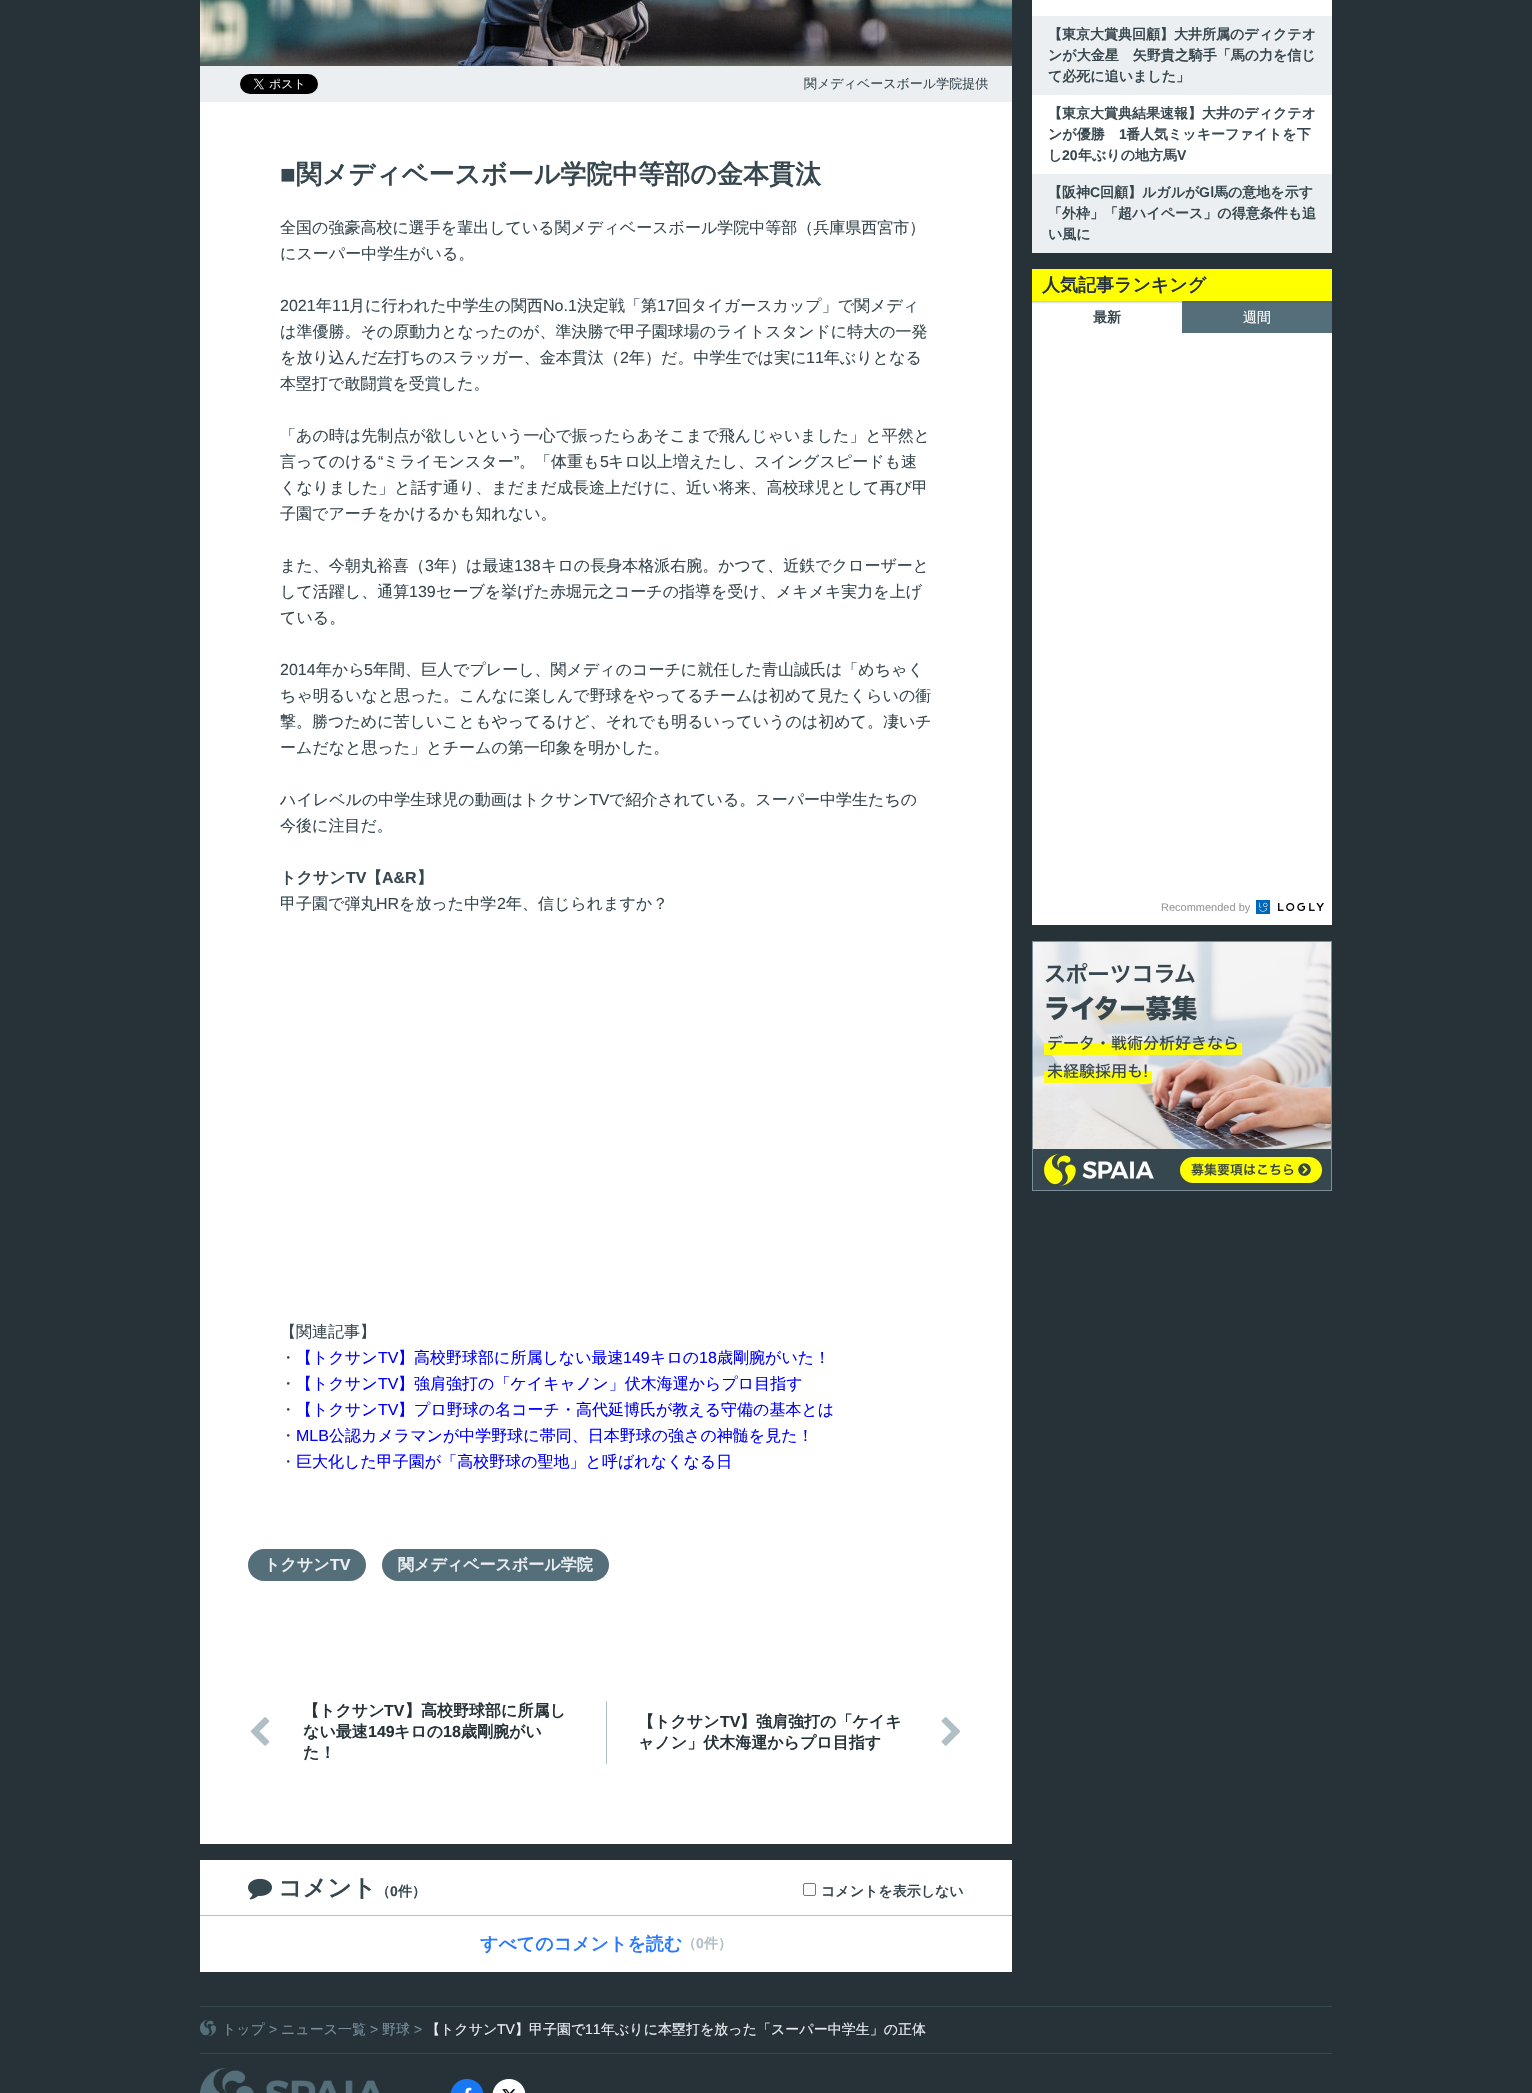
#include "include/core/SkBlurTypes.h"
#include "include/core/SkCanvas.h"
#include "include/core/SkData.h"
#include "include/core/SkFont.h"
#include "include/core/SkFontMgr.h"
#include "include/core/SkImage.h"
#include "include/core/SkMaskFilter.h"
#include "include/core/SkPaint.h"
#include "include/core/SkPathBuilder.h"
#include "include/core/SkTextBlob.h"
#include "include/effects/SkDashPathEffect.h"
#include "include/effects/SkGradientShader.h"
#include "include/utils/SkParsePath.h"

extern sk_sp<SkFontMgr> fontMgr;

static SkFont font(const char* family, int weight, float size, bool italic = false) {
    SkFontStyle style(weight, SkFontStyle::kNormal_Width,
        italic ? SkFontStyle::kItalic_Slant : SkFontStyle::kUpright_Slant);
    SkFont result(fontMgr->matchFamilyStyle(family, style), size);
    result.setSubpixel(true);
    return result;
}

static void drawLabel(SkCanvas* canvas, const char* s, float x, float y, const SkFont& font, SkColor color) {
    SkPaint ink(SkColor4f::FromColor(color));
    ink.setAntiAlias(true);
    canvas->drawString(s, x, y, font, ink);
}

static void fillRect(SkCanvas* canvas, float x, float y, float w, float h, SkColor color) {
    SkPaint ink(SkColor4f::FromColor(color));
    ink.setAntiAlias(true);
    canvas->drawRect(SkRect::MakeXYWH(x, y, w, h), ink);
}

static void fillRRect(SkCanvas* canvas, float x, float y, float w, float h, float radius, SkColor color) {
    SkPaint ink(SkColor4f::FromColor(color));
    ink.setAntiAlias(true);
    canvas->drawRoundRect(SkRect::MakeXYWH(x, y, w, h), radius, radius, ink);
}

static void drawPhoto(SkCanvas* canvas, const char* path, float x, float y, float w, float h) {
    auto image = SkImages::DeferredFromEncodedData(SkData::MakeFromFileName(path));
    canvas->drawImageRect(image, SkRect::MakeXYWH(x, y, w, h), SkSamplingOptions());
}

void draw(SkCanvas* canvas) {
    SkPaint paint;
    paint.setAntiAlias(true);
    canvas->clear(0xFF263238);
    fillRect(canvas, 200, 102, 812, 1742, 0xFFFFFFFF);
    drawPhoto(canvas, "assets/img1.png", 200, 0, 812, 66);
    fillRect(canvas, 200, 66, 812, 36, 0xFFECEFF1);
    drawPhoto(canvas, "assets/img2.png", 240, 74, 78, 20);
    SkFont font1 = font("WenQuanYi Zen Hei", 500, 13);
    drawLabel(canvas, "関メディベースボール学院提供", 804, 88, font1, 0xFF37474F);
    SkFont font2 = font("Liberation Sans", 700, 26);
    drawLabel(canvas, "■", 280, 183, font2, 0xFF37474F);
    SkFont font3 = font("WenQuanYi Zen Hei", 700, 26);
    drawLabel(canvas, "関メディベースボール学院中等部の金本貫汰", 296, 183, font3, 0xFF37474F);
    SkFont font4 = font("WenQuanYi Zen Hei", 500, 16);
    drawLabel(canvas, "全国の強豪高校に選手を輩出している関メディベースボール学院中等部（兵庫県西宮市）", 280, 233, font4, 0xFF37474F);
    drawLabel(canvas, "にスーパー中学生がいる。", 280, 259, font4, 0xFF37474F);
    SkFont font5 = font("Liberation Sans", 400, 16);
    drawLabel(canvas, "2021", 280, 311, font5, 0xFF37474F);
    drawLabel(canvas, "年", 316, 311, font4, 0xFF37474F);
    drawLabel(canvas, "11", 332, 311, font5, 0xFF37474F);
    drawLabel(canvas, "月に行われた中学生の関西", 349, 311, font4, 0xFF37474F);
    drawLabel(canvas, "No.1", 543, 311, font5, 0xFF37474F);
    drawLabel(canvas, "決定戦「第", 577, 311, font4, 0xFF37474F);
    drawLabel(canvas, "17", 657, 311, font5, 0xFF37474F);
    drawLabel(canvas, "回タイガースカップ」で関メディ", 675, 311, font4, 0xFF37474F);
    drawLabel(canvas, "は準優勝。その原動力となったのが、準決勝で甲子園球場のライトスタンドに特大の一発", 280, 337, font4, 0xFF37474F);
    drawLabel(canvas, "を放り込んだ左打ちのスラッガー、金本貫汰（", 280, 363, font4, 0xFF37474F);
    drawLabel(canvas, "2", 620, 363, font5, 0xFF37474F);
    drawLabel(canvas, "年）だ。中学生では実に", 629, 363, font4, 0xFF37474F);
    drawLabel(canvas, "11", 806, 363, font5, 0xFF37474F);
    drawLabel(canvas, "年ぶりとなる", 824, 363, font4, 0xFF37474F);
    drawLabel(canvas, "本塁打で敢闘賞を受賞した。", 280, 389, font4, 0xFF37474F);
    drawLabel(canvas, "「あの時は先制点が欲しいという一心で振ったらあそこまで飛んじゃいました」と平然と", 280, 441, font4, 0xFF37474F);
    drawLabel(canvas, "言ってのける", 280, 467, font4, 0xFF37474F);
    drawLabel(canvas, "“", 378, 467, font5, 0xFF37474F);
    drawLabel(canvas, "ミライモンスター", 383, 467, font4, 0xFF37474F);
    drawLabel(canvas, "”", 514, 467, font5, 0xFF37474F);
    drawLabel(canvas, "。「体重も", 519, 467, font4, 0xFF37474F);
    drawLabel(canvas, "5", 600, 467, font5, 0xFF37474F);
    drawLabel(canvas, "キロ以上増えたし、スイングスピードも速", 608, 467, font4, 0xFF37474F);
    drawLabel(canvas, "くなりました」と話す通り、まだまだ成長途上だけに、近い将来、高校球児として再び甲", 280, 493, font4, 0xFF37474F);
    drawLabel(canvas, "子園でアーチをかけるかも知れない。", 280, 519, font4, 0xFF37474F);
    drawLabel(canvas, "また、今朝丸裕喜（", 280, 571, font4, 0xFF37474F);
    drawLabel(canvas, "3", 425, 571, font5, 0xFF37474F);
    drawLabel(canvas, "年）は最速", 434, 571, font4, 0xFF37474F);
    drawLabel(canvas, "138", 514, 571, font5, 0xFF37474F);
    drawLabel(canvas, "キロの長身本格派右腕。かつて、近鉄でクローザーと", 541, 571, font4, 0xFF37474F);
    drawLabel(canvas, "して活躍し、通算", 280, 597, font4, 0xFF37474F);
    drawLabel(canvas, "139", 409, 597, font5, 0xFF37474F);
    drawLabel(canvas, "セーブを挙げた赤堀元之コーチの指導を受け、メキメキ実力を上げ", 436, 597, font4, 0xFF37474F);
    drawLabel(canvas, "ている。", 280, 623, font4, 0xFF37474F);
    drawLabel(canvas, "2014", 280, 675, font5, 0xFF37474F);
    drawLabel(canvas, "年から", 316, 675, font4, 0xFF37474F);
    drawLabel(canvas, "5", 364, 675, font5, 0xFF37474F);
    drawLabel(canvas, "年間、巨人でプレーし、関メディのコーチに就任した青山誠氏は「めちゃく", 373, 675, font4, 0xFF37474F);
    drawLabel(canvas, "ちゃ明るいなと思った。こんなに楽しんで野球をやってるチームは初めて見たくらいの衝", 280, 701, font4, 0xFF37474F);
    drawLabel(canvas, "撃。勝つために苦しいこともやってるけど、それでも明るいっていうのは初めて。凄いチ", 280, 727, font4, 0xFF37474F);
    drawLabel(canvas, "ームだなと思った」とチームの第一印象を明かした。", 280, 753, font4, 0xFF37474F);
    drawLabel(canvas, "ハイレベルの中学生球児の動画はトクサン", 280, 805, font4, 0xFF37474F);
    drawLabel(canvas, "TV", 589, 805, font5, 0xFF37474F);
    drawLabel(canvas, "で紹介されている。スーパー中学生たちの", 609, 805, font4, 0xFF37474F);
    drawLabel(canvas, "今後に注目だ。", 280, 831, font4, 0xFF37474F);
    SkFont font6 = font("WenQuanYi Zen Hei", 700, 16);
    drawLabel(canvas, "トクサン", 280, 883, font6, 0xFF37474F);
    SkFont font7 = font("Liberation Sans", 700, 16);
    drawLabel(canvas, "TV", 346, 883, font7, 0xFF37474F);
    drawLabel(canvas, "【", 366, 883, font6, 0xFF37474F);
    drawLabel(canvas, "A&R", 382, 883, font7, 0xFF37474F);
    drawLabel(canvas, "】", 417, 883, font6, 0xFF37474F);
    drawLabel(canvas, "甲子園で弾丸", 280, 909, font4, 0xFF37474F);
    drawLabel(canvas, "HR", 376, 909, font5, 0xFF37474F);
    drawLabel(canvas, "を放った中学", 399, 909, font4, 0xFF37474F);
    drawLabel(canvas, "2", 497, 909, font5, 0xFF37474F);
    drawLabel(canvas, "年、信じられますか？", 506, 909, font4, 0xFF37474F);
    drawLabel(canvas, "【関連記事】", 280, 1337, font4, 0xFF37474F);
    drawLabel(canvas, "・", 280, 1363, font4, 0xFF37474F);
    drawLabel(canvas, "【トクサン", 296, 1363, font4, 0xFF0000FF);
    drawLabel(canvas, "TV", 378, 1363, font5, 0xFF0000FF);
    drawLabel(canvas, "】高校野球部に所属しない最速", 398, 1363, font4, 0xFF0000FF);
    drawLabel(canvas, "149", 623, 1363, font5, 0xFF0000FF);
    drawLabel(canvas, "キロの", 650, 1363, font4, 0xFF0000FF);
    drawLabel(canvas, "18", 699, 1363, font5, 0xFF0000FF);
    drawLabel(canvas, "歳剛腕がいた！", 717, 1363, font4, 0xFF0000FF);
    drawLabel(canvas, "・", 280, 1389, font4, 0xFF37474F);
    drawLabel(canvas, "【トクサン", 296, 1389, font4, 0xFF0000FF);
    drawLabel(canvas, "TV", 378, 1389, font5, 0xFF0000FF);
    drawLabel(canvas, "】強肩強打の「ケイキャノン」伏木海運からプロ目指す", 398, 1389, font4, 0xFF0000FF);
    drawLabel(canvas, "・", 280, 1415, font4, 0xFF37474F);
    drawLabel(canvas, "【トクサン", 296, 1415, font4, 0xFF0000FF);
    drawLabel(canvas, "TV", 378, 1415, font5, 0xFF0000FF);
    drawLabel(canvas, "】プロ野球の名コーチ・高代延博氏が教える守備の基本とは", 398, 1415, font4, 0xFF0000FF);
    drawLabel(canvas, "・", 280, 1441, font4, 0xFF37474F);
    drawLabel(canvas, "MLB", 296, 1441, font5, 0xFF0000FF);
    drawLabel(canvas, "公認カメラマンが中学野球に帯同、日本野球の強さの神髄を見た！", 329, 1441, font4, 0xFF0000FF);
    drawLabel(canvas, "・", 280, 1467, font4, 0xFF37474F);
    drawLabel(canvas, "巨大化した甲子園が「高校野球の聖地」と呼ばれなくなる日", 296, 1467, font4, 0xFF0000FF);
    fillRRect(canvas, 248, 1549, 118, 32, 16, 0xFF546E7A);
    drawLabel(canvas, "トクサン", 264, 1570, font6, 0xFFECEFF1);
    drawLabel(canvas, "TV", 330, 1570, font7, 0xFFECEFF1);
    fillRRect(canvas, 382, 1549, 227, 32, 16, 0xFF546E7A);
    drawLabel(canvas, "関メディベースボール学院", 398, 1570, font6, 0xFFECEFF1);
    drawPhoto(canvas, "assets/img3.png", 250, 1717, 20, 29);
    drawLabel(canvas, "【トクサン", 303, 1716, font6, 0xFF263238);
    drawLabel(canvas, "TV", 384, 1716, font7, 0xFF263238);
    drawLabel(canvas, "】高校野球部に所属し", 405, 1716, font6, 0xFF263238);
    drawLabel(canvas, "ない最速", 303, 1737, font6, 0xFF263238);
    drawLabel(canvas, "149", 368, 1737, font7, 0xFF263238);
    drawLabel(canvas, "キロの", 394, 1737, font6, 0xFF263238);
    drawLabel(canvas, "18", 443, 1737, font7, 0xFF263238);
    drawLabel(canvas, "歳剛腕がい", 461, 1737, font6, 0xFF263238);
    drawLabel(canvas, "た！", 303, 1758, font6, 0xFF263238);
    fillRect(canvas, 606, 1701, 1, 63, 0xFFB0BEC5);
    drawLabel(canvas, "【トクサン", 638, 1727, font6, 0xFF263238);
    drawLabel(canvas, "TV", 720, 1727, font7, 0xFF263238);
    drawLabel(canvas, "】強肩強打の「ケイキ", 740, 1727, font6, 0xFF263238);
    drawLabel(canvas, "ャノン」伏木海運からプロ目指す", 638, 1748, font6, 0xFF263238);
    drawPhoto(canvas, "assets/img4.png", 941, 1717, 20, 29);
    fillRect(canvas, 200, 1860, 812, 112, 0xFFFFFFFF);
    fillRect(canvas, 200, 1915, 812, 1, 0xFFB0BEC5);
    drawPhoto(canvas, "assets/img5.png", 248, 1878, 24, 22);
    SkFont font8 = font("WenQuanYi Zen Hei", 700, 24);
    drawLabel(canvas, "コメント", 278, 1896, font8, 0xFF37474F);
    SkFont font9 = font("WenQuanYi Zen Hei", 700, 14);
    drawLabel(canvas, "（", 376, 1896, font9, 0xFF37474F);
    SkFont font10 = font("Liberation Sans", 700, 14);
    drawLabel(canvas, "0", 390, 1896, font10, 0xFF37474F);
    drawLabel(canvas, "件）", 398, 1896, font9, 0xFF37474F);
    paint.setStroke(true);
    paint.setStrokeWidth(1);
    paint.setColor(0xFF767676);
    canvas->drawRoundRect(SkRect::MakeXYWH(803.5f, 1883.5f, 12, 12), 1.5f, 1.5f, paint);
    drawLabel(canvas, "コメントを表示しない", 821, 1896, font9, 0xFF37474F);
    SkFont font11 = font("WenQuanYi Zen Hei", 700, 18);
    drawLabel(canvas, "すべてのコメントを読む", 480, 1950, font11, 0xFF2979FF);
    drawLabel(canvas, "（", 682, 1948, font9, 0xFFB0BEC5);
    drawLabel(canvas, "0", 696, 1948, font10, 0xFFB0BEC5);
    drawLabel(canvas, "件）", 704, 1948, font9, 0xFFB0BEC5);
    fillRect(canvas, 1032, 0, 300, 174, 0xFFFFFFFF);
    fillRect(canvas, 1032, 16, 300, 79, 0xFFECEFF1);
    drawLabel(canvas, "【東京大賞典回顧】大井所属のディクテオ", 1048, 39, font9, 0xFF37474F);
    drawLabel(canvas, "ンが大金星　矢野貴之騎手「馬の力を信じ", 1048, 60, font9, 0xFF37474F);
    drawLabel(canvas, "て必死に追いました」", 1048, 81, font9, 0xFF37474F);
    drawLabel(canvas, "【東京大賞典結果速報】大井のディクテオ", 1048, 118, font9, 0xFF37474F);
    drawLabel(canvas, "ンが優勝", 1048, 139, font9, 0xFF37474F);
    drawLabel(canvas, "1", 1119, 139, font10, 0xFF37474F);
    drawLabel(canvas, "番人気ミッキーファイトを下", 1126, 139, font9, 0xFF37474F);
    drawLabel(canvas, "し", 1048, 160, font9, 0xFF37474F);
    drawLabel(canvas, "20", 1062, 160, font10, 0xFF37474F);
    drawLabel(canvas, "年ぶりの地方馬", 1078, 160, font9, 0xFF37474F);
    drawLabel(canvas, "V", 1177, 160, font10, 0xFF37474F);
    fillRect(canvas, 1032, 174, 300, 79, 0xFFECEFF1);
    drawLabel(canvas, "【阪神", 1048, 197, font9, 0xFF37474F);
    drawLabel(canvas, "C", 1090, 197, font10, 0xFF37474F);
    drawLabel(canvas, "回顧】ルガルが", 1100, 197, font9, 0xFF37474F);
    drawLabel(canvas, "G", 1199, 197, font10, 0xFF37474F);
    SkFont font12 = font("DejaVu Sans", 700, 14);
    drawLabel(canvas, "Ⅰ", 1210, 197, font12, 0xFF37474F);
    drawLabel(canvas, "馬の意地を示す", 1214, 197, font9, 0xFF37474F);
    drawLabel(canvas, "「外枠」「超ハイペース」の得意条件も追", 1048, 218, font9, 0xFF37474F);
    drawLabel(canvas, "い風に", 1048, 239, font9, 0xFF37474F);
    fillRect(canvas, 1032, 301, 300, 624, 0xFFFFFFFF);
    fillRect(canvas, 1032, 269, 300, 32, 0xFFFFFF00);
    drawLabel(canvas, "人気記事ランキング", 1042, 291, font11, 0xFF263238);
    fillRect(canvas, 1182, 301, 150, 32, 0xFF546E7A);
    paint.setStroke(false);
    {
        const SkColor colors[] = {0x0037474F, 0x4D37474F};
        const float stops[] = {0, 1};
        const SkPoint ends[] = {{1182, 304}, {1182, 301}};
        paint.setShader(SkGradientShader::MakeLinear(ends, colors, stops, 2, SkTileMode::kClamp));
        paint.setAlpha(255);
    }
    canvas->drawRect(SkRect::MakeXYWH(1032, 301, 300, 3), paint);
    drawLabel(canvas, "最新", 1093, 322, font9, 0xFF37474F);
    SkFont font13 = font("WenQuanYi Zen Hei", 500, 14);
    drawLabel(canvas, "週間", 1243, 322, font13, 0xFFFFFFFF);
    SkFont font14 = font("Liberation Sans", 400, 11);
    drawLabel(canvas, "Recommended by", 1161, 911, font14, 0xFF999999);
    drawPhoto(canvas, "assets/img6.png", 1256, 900, 68, 14);
    drawPhoto(canvas, "assets/img7.png", 1032, 941, 300, 250);
    fillRect(canvas, 200, 2006, 1132, 1, 0xFF37474F);
    fillRect(canvas, 200, 2053, 1132, 1, 0xFF37474F);
    drawPhoto(canvas, "assets/img8.png", 200, 2020, 16, 16);
    drawLabel(canvas, "トップ", 222, 2034, font13, 0xFF78909C);
    SkFont font15 = font("Liberation Sans", 400, 14);
    drawLabel(canvas, ">", 269, 2034, font15, 0xFF78909C);
    drawLabel(canvas, "ニュース一覧", 281, 2034, font13, 0xFF78909C);
    drawLabel(canvas, ">", 370, 2034, font15, 0xFF78909C);
    drawLabel(canvas, "野球", 382, 2034, font13, 0xFF78909C);
    drawLabel(canvas, ">", 414, 2034, font15, 0xFF78909C);
    drawLabel(canvas, "【トクサン", 426, 2034, font13, 0xFFECEFF1);
    drawLabel(canvas, "TV", 497, 2034, font15, 0xFFECEFF1);
    drawLabel(canvas, "】甲子園で", 515, 2034, font13, 0xFFECEFF1);
    drawLabel(canvas, "11", 585, 2034, font15, 0xFFECEFF1);
    drawLabel(canvas, "年ぶりに本塁打を放った「スーパー中学生」の正体", 601, 2034, font13, 0xFFECEFF1);
    drawPhoto(canvas, "assets/img9.png", 200, 2068, 180, 25);
    drawPhoto(canvas, "assets/img10.png", 450, 2079, 34, 14);
    drawPhoto(canvas, "assets/img11.png", 492, 2079, 34, 14);
}
